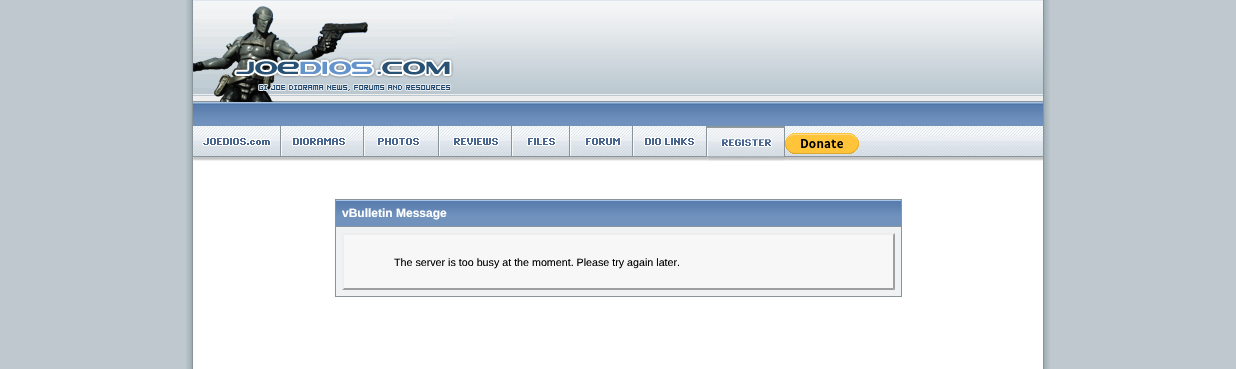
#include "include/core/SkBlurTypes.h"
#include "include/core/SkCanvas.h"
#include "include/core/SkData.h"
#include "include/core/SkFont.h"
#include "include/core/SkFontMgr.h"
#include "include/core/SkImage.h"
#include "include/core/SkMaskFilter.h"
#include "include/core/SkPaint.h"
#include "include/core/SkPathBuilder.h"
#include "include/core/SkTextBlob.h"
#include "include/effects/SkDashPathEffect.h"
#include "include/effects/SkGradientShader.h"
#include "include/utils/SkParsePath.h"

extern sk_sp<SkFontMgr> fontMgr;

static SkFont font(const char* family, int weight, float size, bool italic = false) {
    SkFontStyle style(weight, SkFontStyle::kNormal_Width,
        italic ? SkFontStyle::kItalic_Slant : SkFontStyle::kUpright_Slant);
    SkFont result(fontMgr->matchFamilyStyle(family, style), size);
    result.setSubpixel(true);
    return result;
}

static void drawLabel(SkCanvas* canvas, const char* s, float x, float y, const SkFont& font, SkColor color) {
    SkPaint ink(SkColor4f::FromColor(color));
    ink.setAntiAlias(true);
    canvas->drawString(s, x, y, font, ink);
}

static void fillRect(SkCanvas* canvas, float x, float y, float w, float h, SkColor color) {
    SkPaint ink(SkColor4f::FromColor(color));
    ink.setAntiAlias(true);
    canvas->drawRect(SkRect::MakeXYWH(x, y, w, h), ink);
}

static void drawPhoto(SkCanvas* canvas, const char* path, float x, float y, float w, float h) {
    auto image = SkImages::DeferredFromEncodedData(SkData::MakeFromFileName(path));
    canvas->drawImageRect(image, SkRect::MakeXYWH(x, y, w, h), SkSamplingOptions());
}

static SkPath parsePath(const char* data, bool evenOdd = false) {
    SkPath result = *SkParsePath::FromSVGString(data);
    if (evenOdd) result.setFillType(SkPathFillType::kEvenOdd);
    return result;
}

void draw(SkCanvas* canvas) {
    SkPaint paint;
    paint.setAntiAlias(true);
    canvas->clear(0xFFBEC8CE);
    drawPhoto(canvas, "assets/img1.png", 186, 0, 7, 369);
    drawPhoto(canvas, "assets/img2.png", 193, 0, 850, 126);
    drawPhoto(canvas, "assets/img3.png", 193, 6, 261, 97);
    drawPhoto(canvas, "assets/img4.png", 193, 126, 88, 37);
    drawPhoto(canvas, "assets/img5.png", 281, 126, 83, 37);
    drawPhoto(canvas, "assets/img6.png", 364, 126, 75, 37);
    drawPhoto(canvas, "assets/img7.png", 439, 126, 73, 37);
    drawPhoto(canvas, "assets/img8.png", 512, 126, 58, 37);
    drawPhoto(canvas, "assets/img9.png", 570, 126, 63, 37);
    drawPhoto(canvas, "assets/img10.png", 633, 126, 74, 37);
    drawPhoto(canvas, "assets/img11.png", 707, 126, 78, 1);
    drawPhoto(canvas, "assets/img12.png", 707, 127, 78, 36);
    drawPhoto(canvas, "assets/img13.png", 785, 126, 78, 37);
    drawPhoto(canvas, "assets/img14.png", 785, 133, 74, 21);
    drawPhoto(canvas, "assets/img15.png", 863, 126, 180, 37);
    fillRect(canvas, 193, 163, 850, 206, 0xFFFFFFFF);
    fillRect(canvas, 335, 199, 567, 98, 0xFF89959B);
    drawPhoto(canvas, "assets/img16.png", 336, 200, 565, 26);
    SkFont font1 = font("Liberation Sans", 700, 12);
    drawLabel(canvas, "vBulletin Message", 342, 217, font1, 0xFFFFFFFF);
    fillRect(canvas, 336, 227, 565, 69, 0xFFF0F1F3);
    fillRect(canvas, 342, 233, 553, 57, 0xFFF7F7F7);
    paint.setColor(0xFFEEEEEE);
    canvas->drawPath(parsePath("M342 233H895L893 235H344Z"), paint);
    paint.setColor(0xFF9F9F9F);
    canvas->drawPath(parsePath("M895 233V290L893 288V235Z"), paint);
    canvas->drawPath(parsePath("M895 290H342L344 288H893Z"), paint);
    paint.setColor(0xFFEEEEEE);
    canvas->drawPath(parsePath("M342 290V233L344 235V288Z"), paint);
    SkFont font2 = font("Liberation Sans", 400, 10.7f);
    drawLabel(canvas, "The server is too busy at the moment. Please try again later.", 394, 266, font2, 0xFF000000);
    drawPhoto(canvas, "assets/img17.png", 1043, 0, 7, 369);
}
